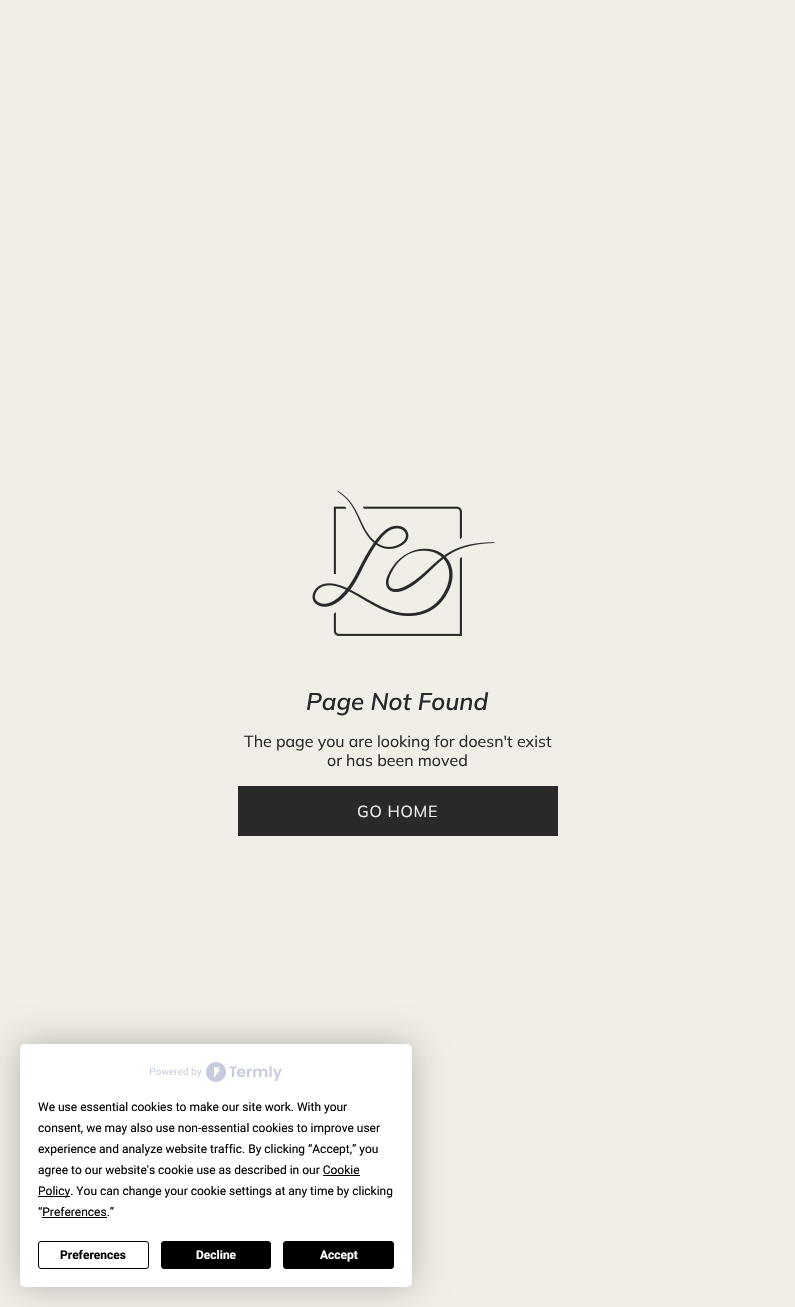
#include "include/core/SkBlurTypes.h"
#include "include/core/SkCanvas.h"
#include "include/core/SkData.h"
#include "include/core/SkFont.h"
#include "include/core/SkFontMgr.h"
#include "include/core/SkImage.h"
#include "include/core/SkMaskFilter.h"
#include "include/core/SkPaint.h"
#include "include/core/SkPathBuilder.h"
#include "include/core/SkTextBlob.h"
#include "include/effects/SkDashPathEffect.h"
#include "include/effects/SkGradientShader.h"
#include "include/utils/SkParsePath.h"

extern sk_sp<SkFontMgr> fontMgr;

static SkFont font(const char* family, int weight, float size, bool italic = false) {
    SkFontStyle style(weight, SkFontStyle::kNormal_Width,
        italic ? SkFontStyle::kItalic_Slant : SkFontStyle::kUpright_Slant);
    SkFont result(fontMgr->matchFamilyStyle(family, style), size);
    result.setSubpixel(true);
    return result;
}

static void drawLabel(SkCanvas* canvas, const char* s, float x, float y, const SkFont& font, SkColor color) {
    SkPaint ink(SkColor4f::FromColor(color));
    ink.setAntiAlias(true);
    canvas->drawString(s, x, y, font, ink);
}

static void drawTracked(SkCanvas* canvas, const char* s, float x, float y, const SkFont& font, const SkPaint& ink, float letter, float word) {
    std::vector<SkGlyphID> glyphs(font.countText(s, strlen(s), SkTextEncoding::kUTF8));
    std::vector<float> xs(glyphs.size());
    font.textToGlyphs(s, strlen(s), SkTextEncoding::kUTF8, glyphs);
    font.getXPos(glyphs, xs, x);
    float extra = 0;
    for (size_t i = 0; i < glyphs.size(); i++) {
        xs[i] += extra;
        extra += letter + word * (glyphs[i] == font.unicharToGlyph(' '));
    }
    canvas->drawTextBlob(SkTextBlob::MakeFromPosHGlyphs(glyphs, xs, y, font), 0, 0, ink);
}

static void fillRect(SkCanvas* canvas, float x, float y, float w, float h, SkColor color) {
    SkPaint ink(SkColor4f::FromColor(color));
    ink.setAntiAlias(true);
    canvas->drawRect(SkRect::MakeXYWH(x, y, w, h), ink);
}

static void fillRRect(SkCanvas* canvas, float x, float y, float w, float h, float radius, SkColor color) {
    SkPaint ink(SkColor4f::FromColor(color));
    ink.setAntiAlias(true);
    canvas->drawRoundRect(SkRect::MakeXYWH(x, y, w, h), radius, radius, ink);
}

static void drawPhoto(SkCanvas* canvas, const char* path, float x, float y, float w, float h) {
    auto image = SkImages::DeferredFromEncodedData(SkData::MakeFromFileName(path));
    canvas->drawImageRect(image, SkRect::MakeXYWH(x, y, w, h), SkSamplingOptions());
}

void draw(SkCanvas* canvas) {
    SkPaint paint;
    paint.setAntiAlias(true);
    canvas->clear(0xFFF1EEE7);
    drawPhoto(canvas, "assets/img1.png", 312, 490, 183, 146);
    SkFont font1 = font("Mulish", 600, 24, true);
    drawLabel(canvas, "Page Not Found", 306, 710, font1, 0xFF292929);
    SkFont font2 = font("Mulish", 400, 16);
    drawLabel(canvas, "The page you are looking for doesn't exist", 244, 747, font2, 0xFF292929);
    drawLabel(canvas, "or has been moved", 327, 766, font2, 0xFF292929);
    fillRect(canvas, 238, 786, 320, 50, 0xFF292929);
    paint.setColor(0xFFF1EEE7);
    drawTracked(canvas, "GO HOME", 357, 817, font2, paint, 0.75f, 0);
    paint.setColor(0x40000000);
    paint.setMaskFilter(SkMaskFilter::MakeBlur(kNormal_SkBlurStyle, 17.5f));
    canvas->drawRoundRect(SkRect::MakeXYWH(20, 1044, 392, 243), 5, 5, paint);
    paint.setMaskFilter(nullptr);
    fillRRect(canvas, 20, 1044, 392, 243, 5, 0xFFFFFFFF);
    drawPhoto(canvas, "assets/img2.png", 150, 1062, 132, 20);
    SkFont font3 = font("Roboto", 400, 12);
    drawLabel(canvas, "We use essential cookies to make our site work. With your", 38, 1111, font3, 0xFF000000);
    drawLabel(canvas, "consent, we may also use non-essential cookies to improve user", 38, 1132, font3, 0xFF000000);
    drawLabel(canvas, "experience and analyze website traffic. By clicking “Accept,” you", 38, 1153, font3, 0xFF000000);
    drawLabel(canvas, "agree to our website's cookie use as described in our Cookie", 38, 1174, font3, 0xFF000000);
    fillRect(canvas, 38, 1196, 32, 1, 0xFF000000);
    drawLabel(canvas, "Policy. You can change your cookie settings at any time by clicking", 38, 1195, font3, 0xFF000000);
    fillRect(canvas, 323, 1175, 37, 1, 0xFF000000);
    drawLabel(canvas, "“Preferences.”", 38, 1216, font3, 0xFF000000);
    fillRect(canvas, 42, 1217, 65, 1, 0xFF000000);
    paint.setStroke(true);
    paint.setStrokeWidth(1);
    paint.setColor(0xFF000000);
    canvas->drawRoundRect(SkRect::MakeXYWH(38.5f, 1241.5f, 110, 27), 2.5f, 2.5f, paint);
    SkFont font4 = font("Roboto", 700, 12);
    drawLabel(canvas, "Preferences", 60, 1259, font4, 0xFF000000);
    paint.setStroke(false);
    canvas->drawRoundRect(SkRect::MakeXYWH(161.5f, 1241.5f, 109, 27), 2.5f, 2.5f, paint);
    paint.setStroke(true);
    canvas->drawRoundRect(SkRect::MakeXYWH(161.5f, 1241.5f, 109, 27), 2.5f, 2.5f, paint);
    drawLabel(canvas, "Decline", 196, 1259, font4, 0xFFFFFFFF);
    paint.setStroke(false);
    canvas->drawRoundRect(SkRect::MakeXYWH(283.5f, 1241.5f, 110, 27), 2.5f, 2.5f, paint);
    paint.setStroke(true);
    canvas->drawRoundRect(SkRect::MakeXYWH(283.5f, 1241.5f, 110, 27), 2.5f, 2.5f, paint);
    drawLabel(canvas, "Accept", 320, 1259, font4, 0xFFFFFFFF);
}
